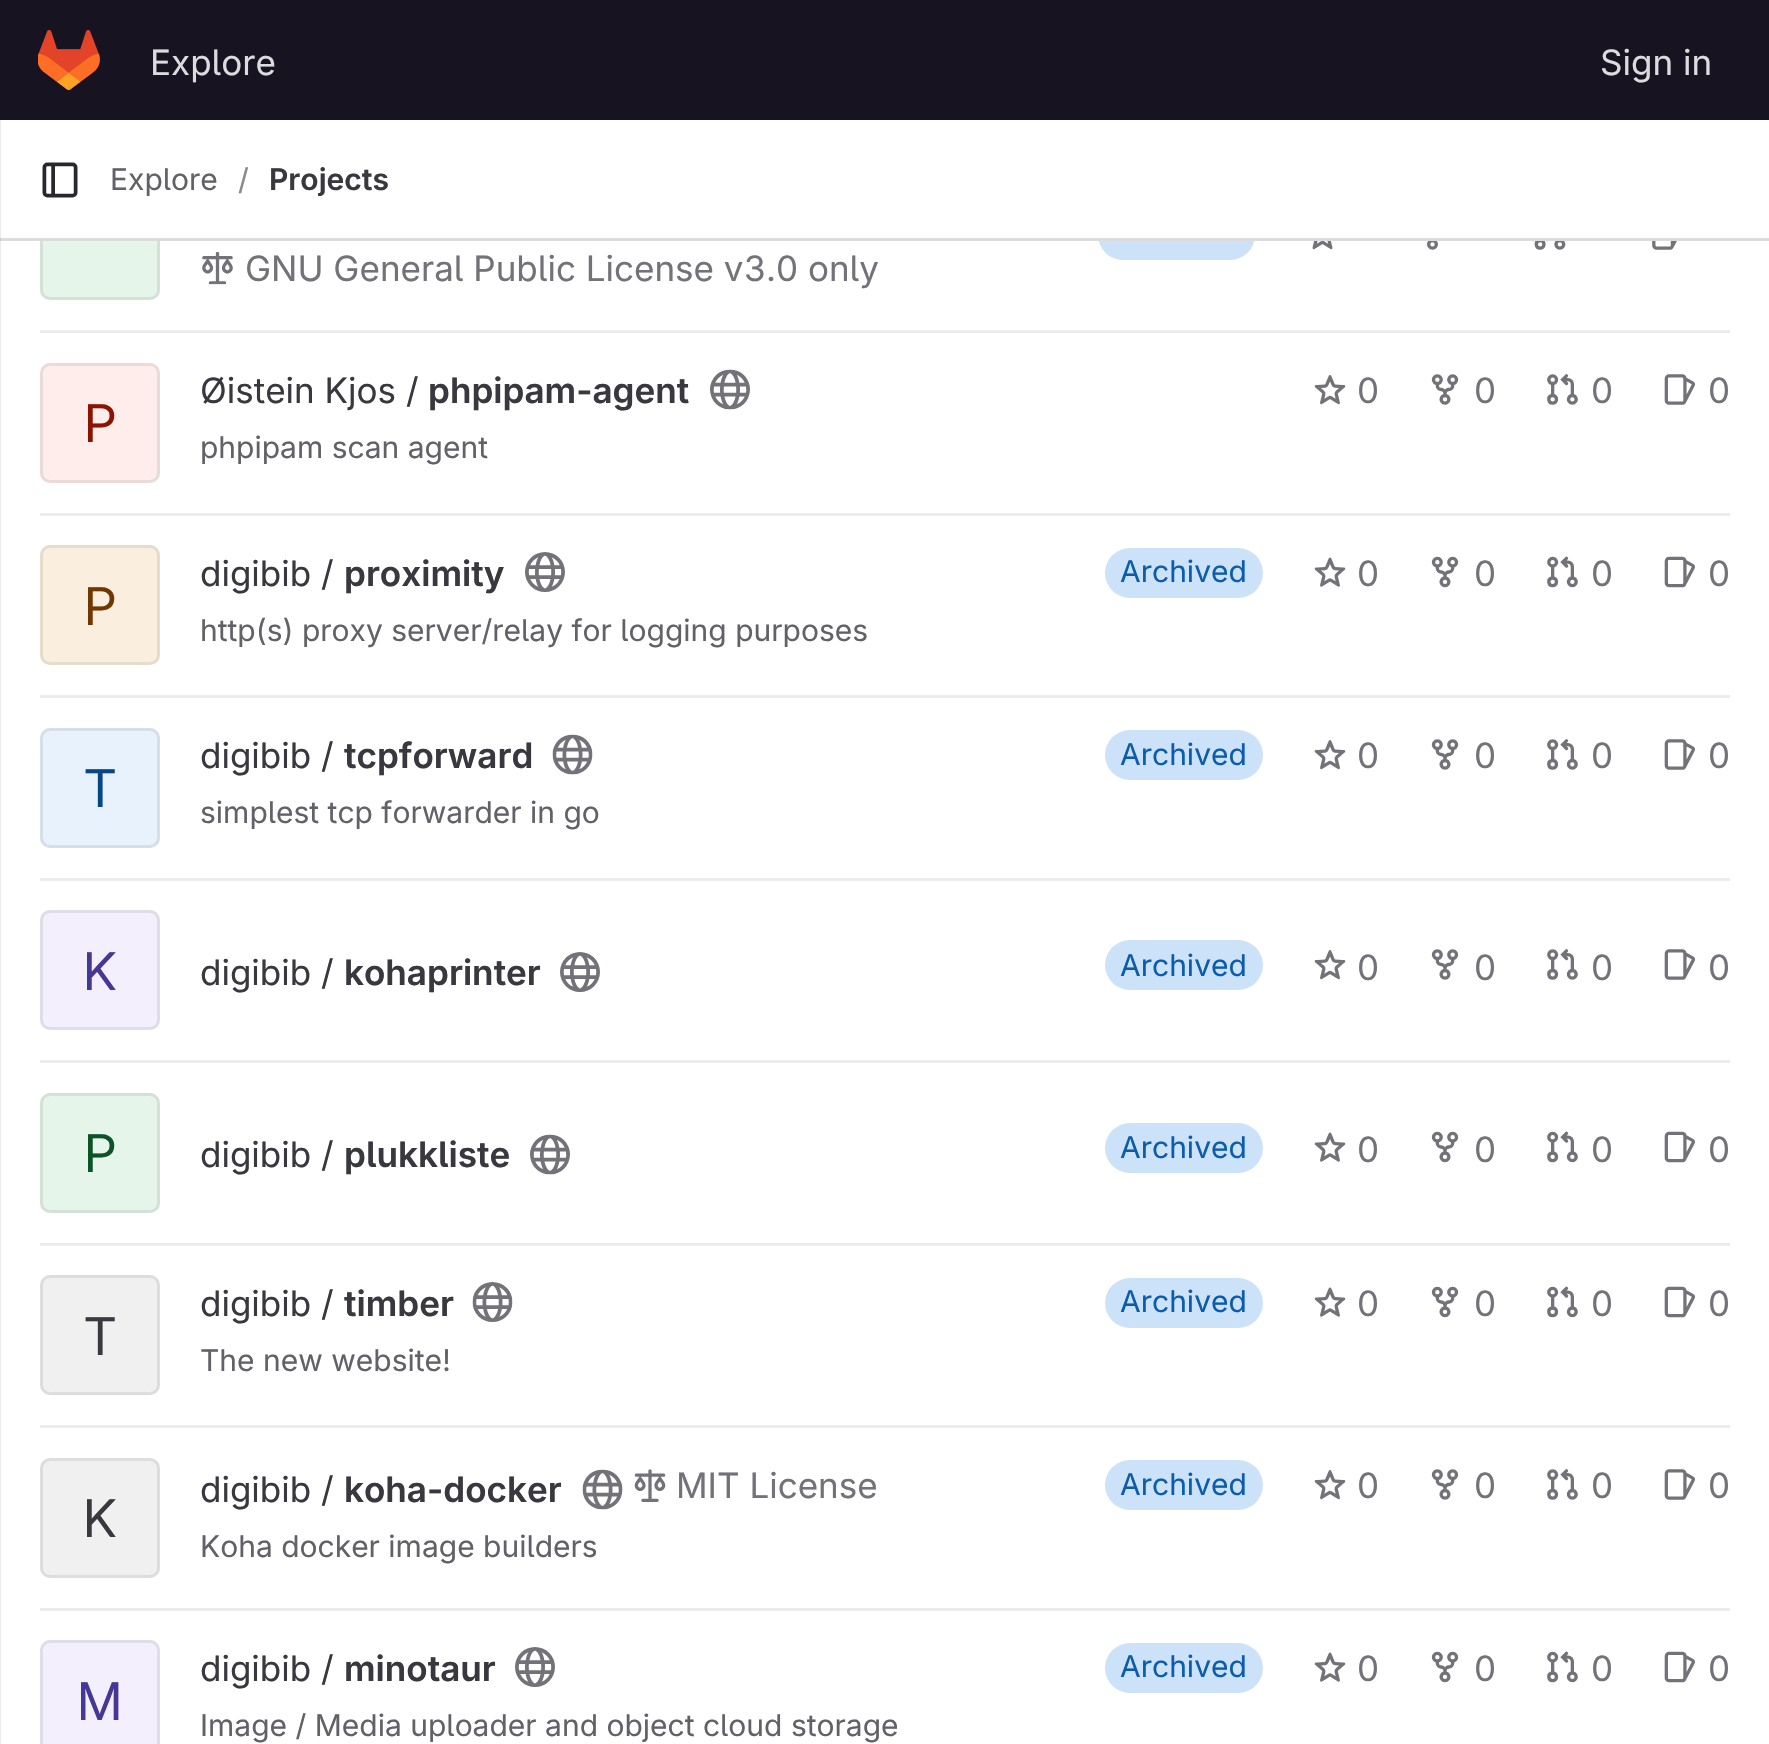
#include "include/core/SkBlurTypes.h"
#include "include/core/SkCanvas.h"
#include "include/core/SkData.h"
#include "include/core/SkFont.h"
#include "include/core/SkFontMgr.h"
#include "include/core/SkImage.h"
#include "include/core/SkMaskFilter.h"
#include "include/core/SkPaint.h"
#include "include/core/SkPathBuilder.h"
#include "include/core/SkTextBlob.h"
#include "include/effects/SkDashPathEffect.h"
#include "include/effects/SkGradientShader.h"
#include "include/utils/SkParsePath.h"

extern sk_sp<SkFontMgr> fontMgr;

static SkFont font(const char* family, int weight, float size, bool italic = false) {
    SkFontStyle style(weight, SkFontStyle::kNormal_Width,
        italic ? SkFontStyle::kItalic_Slant : SkFontStyle::kUpright_Slant);
    SkFont result(fontMgr->matchFamilyStyle(family, style), size);
    result.setSubpixel(true);
    return result;
}

static void drawLabel(SkCanvas* canvas, const char* s, float x, float y, const SkFont& font, SkColor color) {
    SkPaint ink(SkColor4f::FromColor(color));
    ink.setAntiAlias(true);
    canvas->drawString(s, x, y, font, ink);
}

static void fillRect(SkCanvas* canvas, float x, float y, float w, float h, SkColor color) {
    SkPaint ink(SkColor4f::FromColor(color));
    ink.setAntiAlias(true);
    canvas->drawRect(SkRect::MakeXYWH(x, y, w, h), ink);
}

static void fillRRect(SkCanvas* canvas, float x, float y, float w, float h, float radius, SkColor color) {
    SkPaint ink(SkColor4f::FromColor(color));
    ink.setAntiAlias(true);
    canvas->drawRoundRect(SkRect::MakeXYWH(x, y, w, h), radius, radius, ink);
}

static void drawPhoto(SkCanvas* canvas, const char* path, float x, float y, float w, float h) {
    auto image = SkImages::DeferredFromEncodedData(SkData::MakeFromFileName(path));
    canvas->drawImageRect(image, SkRect::MakeXYWH(x, y, w, h), SkSamplingOptions());
}

void draw(SkCanvas* canvas) {
    SkPaint paint;
    paint.setAntiAlias(true);
    canvas->clear(0xFFFFFFFF);
    fillRect(canvas, 0, 241, 1, 1503, 0xFFEBEBEB);
    fillRect(canvas, 0, 0, 1769, 120, 0xFF171321);
    drawPhoto(canvas, "assets/img1.png", 38, 30, 62, 60);
    SkFont font1 = font("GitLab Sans", 400, 35);
    drawLabel(canvas, "Explore", 150, 75, font1, 0xFFDCDCDE);
    drawLabel(canvas, "Sign in", 1600, 75, font1, 0xFFDCDCDE);
    fillRRect(canvas, 40, 180, 120, 120, 10, 0xFFE5F5EA);
    paint.setStroke(true);
    paint.setStrokeWidth(3);
    paint.setColor(0x14050506);
    canvas->drawRoundRect(SkRect::MakeXYWH(41.5f, 181.5f, 117, 117), 8.5f, 8.5f, paint);
    fillRRect(canvas, 1098, 210, 157, 50, 25, 0xFFCBE2F9);
    fillRect(canvas, 40, 180, 1215, 58, 0xFFFFFFFF);
    fillRect(canvas, 0, 120, 1, 120, 0xFFEBEBEB);
    fillRect(canvas, 0, 238, 1769, 3, 0xFFDCDCDE);
    fillRect(canvas, 0, 238, 1, 3, 0xFFCBCBCD);
    drawPhoto(canvas, "assets/img2.png", 42, 162, 36, 36);
    SkFont font2 = font("GitLab Sans", 400, 30);
    drawLabel(canvas, "Explore", 110, 190, font2, 0xFF626168);
    drawLabel(canvas, "/", 238, 190, font2, 0xFF89888D);
    SkFont font3 = font("GitLab Sans", 600, 30);
    drawLabel(canvas, "Projects", 269, 190, font3, 0xFF3A383F);
    fillRect(canvas, 40, 330, 1690, 3, 0xFFECECEF);
    drawPhoto(canvas, "assets/img3.png", 1312, 241, 21, 9);
    drawPhoto(canvas, "assets/img4.png", 1427, 241, 11, 9);
    drawPhoto(canvas, "assets/img5.png", 1534, 241, 32, 9);
    drawPhoto(canvas, "assets/img6.png", 1652, 241, 25, 9);
    drawPhoto(canvas, "assets/img7.png", 202, 251, 31, 34);
    drawLabel(canvas, "GNU General Public License v3.0 only", 245, 281, font1, 0xFF737278);
    drawLabel(canvas, "Øistein Kjos /", 200, 403, font1, 0xFF3A383F);
    SkFont font4 = font("GitLab Sans", 600, 35);
    drawLabel(canvas, "phpipam-agent", 428, 403, font4, 0xFF3A383F);
    drawPhoto(canvas, "assets/img8.png", 710, 369, 40, 41);
    drawLabel(canvas, "phpipam scan agent", 200, 458, font2, 0xFF626168);
    drawPhoto(canvas, "assets/img9.png", 1314, 375, 32, 30);
    drawLabel(canvas, "0", 1357, 403, font1, 0xFF737278);
    drawPhoto(canvas, "assets/img10.png", 1431, 374, 28, 31);
    drawLabel(canvas, "0", 1474, 403, font1, 0xFF737278);
    drawPhoto(canvas, "assets/img11.png", 1547, 374, 31, 31);
    drawLabel(canvas, "0", 1591, 403, font1, 0xFF737278);
    drawPhoto(canvas, "assets/img12.png", 1664, 374, 31, 31);
    drawLabel(canvas, "0", 1708, 403, font1, 0xFF737278);
    fillRect(canvas, 40, 513, 1690, 3, 0xFFECECEF);
    fillRRect(canvas, 40, 363, 120, 120, 10, 0xFFFEEDEB);
    canvas->drawRoundRect(SkRect::MakeXYWH(41.5f, 364.5f, 117, 117), 8.5f, 8.5f, paint);
    SkFont font5 = font("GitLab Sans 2", 400, 52);
    drawLabel(canvas, "P", 84, 442, font5, 0xFF8D1300);
    drawLabel(canvas, "digibib /", 200, 586, font1, 0xFF3A383F);
    drawLabel(canvas, "proximity", 344, 586, font4, 0xFF3A383F);
    drawPhoto(canvas, "assets/img13.png", 525, 552, 40, 40);
    drawLabel(canvas, "http(s) proxy server/relay for logging purposes", 200, 641, font2, 0xFF626168);
    fillRRect(canvas, 1105, 548, 158, 50, 25, 0xFFCBE2F9);
    drawLabel(canvas, "Archived", 1120, 582, font2, 0xFF0B5CAD);
    drawPhoto(canvas, "assets/img14.png", 1314, 557, 32, 30);
    drawLabel(canvas, "0", 1357, 586, font1, 0xFF737278);
    drawPhoto(canvas, "assets/img15.png", 1431, 556, 28, 32);
    drawLabel(canvas, "0", 1474, 586, font1, 0xFF737278);
    drawPhoto(canvas, "assets/img16.png", 1547, 556, 31, 32);
    drawLabel(canvas, "0", 1591, 586, font1, 0xFF737278);
    drawPhoto(canvas, "assets/img17.png", 1664, 556, 31, 32);
    drawLabel(canvas, "0", 1708, 586, font1, 0xFF737278);
    fillRect(canvas, 40, 695, 1690, 3, 0xFFECECEF);
    fillRRect(canvas, 40, 545, 120, 120, 10, 0xFFFAEFDE);
    canvas->drawRoundRect(SkRect::MakeXYWH(41.5f, 546.5f, 117, 117), 8.5f, 8.5f, paint);
    drawLabel(canvas, "P", 84, 625, font5, 0xFF703800);
    drawLabel(canvas, "digibib /", 200, 768, font1, 0xFF3A383F);
    drawLabel(canvas, "tcpforward", 344, 768, font4, 0xFF3A383F);
    drawPhoto(canvas, "assets/img18.png", 552, 734, 41, 41);
    drawLabel(canvas, "simplest tcp forwarder in go", 200, 823, font2, 0xFF626168);
    fillRRect(canvas, 1105, 730, 158, 50, 25, 0xFFCBE2F9);
    drawLabel(canvas, "Archived", 1120, 765, font2, 0xFF0B5CAD);
    drawPhoto(canvas, "assets/img9.png", 1314, 740, 32, 30);
    drawLabel(canvas, "0", 1357, 768, font1, 0xFF737278);
    drawPhoto(canvas, "assets/img10.png", 1431, 739, 28, 31);
    drawLabel(canvas, "0", 1474, 768, font1, 0xFF737278);
    drawPhoto(canvas, "assets/img11.png", 1547, 739, 31, 31);
    drawLabel(canvas, "0", 1591, 768, font1, 0xFF737278);
    drawPhoto(canvas, "assets/img12.png", 1664, 739, 31, 31);
    drawLabel(canvas, "0", 1708, 768, font1, 0xFF737278);
    fillRect(canvas, 40, 878, 1690, 3, 0xFFECECEF);
    fillRRect(canvas, 40, 728, 120, 120, 10, 0xFFE7F2FC);
    canvas->drawRoundRect(SkRect::MakeXYWH(41.5f, 729.5f, 117, 117), 8.5f, 8.5f, paint);
    drawLabel(canvas, "T", 84, 807, font5, 0xFF064787);
    fillRect(canvas, 40, 1060, 1690, 3, 0xFFECECEF);
    fillRRect(canvas, 40, 910, 120, 120, 10, 0xFFF3EFFC);
    canvas->drawRoundRect(SkRect::MakeXYWH(41.5f, 911.5f, 117, 117), 8.5f, 8.5f, paint);
    drawLabel(canvas, "K", 83, 990, font5, 0xFF453894);
    drawLabel(canvas, "digibib /", 200, 985, font1, 0xFF3A383F);
    drawLabel(canvas, "kohaprinter", 344, 985, font4, 0xFF3A383F);
    drawPhoto(canvas, "assets/img19.png", 560, 952, 40, 40);
    fillRRect(canvas, 1105, 940, 158, 50, 25, 0xFFCBE2F9);
    drawLabel(canvas, "Archived", 1120, 976, font2, 0xFF0B5CAD);
    drawPhoto(canvas, "assets/img20.png", 1314, 950, 32, 30);
    drawLabel(canvas, "0", 1357, 980, font1, 0xFF737278);
    drawPhoto(canvas, "assets/img21.png", 1431, 949, 28, 31);
    drawLabel(canvas, "0", 1474, 980, font1, 0xFF737278);
    drawPhoto(canvas, "assets/img22.png", 1547, 949, 31, 31);
    drawLabel(canvas, "0", 1591, 980, font1, 0xFF737278);
    drawPhoto(canvas, "assets/img23.png", 1664, 949, 32, 31);
    drawLabel(canvas, "0", 1708, 980, font1, 0xFF737278);
    fillRect(canvas, 40, 1243, 1690, 3, 0xFFECECEF);
    fillRRect(canvas, 40, 1093, 120, 120, 10, 0xFFE5F5EA);
    canvas->drawRoundRect(SkRect::MakeXYWH(41.5f, 1094.5f, 117, 117), 8.5f, 8.5f, paint);
    drawLabel(canvas, "P", 84, 1172, font5, 0xFF0D532A);
    drawLabel(canvas, "digibib /", 200, 1167, font1, 0xFF3A383F);
    drawLabel(canvas, "plukkliste", 344, 1167, font4, 0xFF3A383F);
    drawPhoto(canvas, "assets/img8.png", 530, 1134, 40, 41);
    fillRRect(canvas, 1105, 1123, 158, 50, 25, 0xFFCBE2F9);
    drawLabel(canvas, "Archived", 1120, 1158, font2, 0xFF0B5CAD);
    drawPhoto(canvas, "assets/img14.png", 1314, 1132, 32, 30);
    drawLabel(canvas, "0", 1357, 1162, font1, 0xFF737278);
    drawPhoto(canvas, "assets/img15.png", 1431, 1131, 28, 32);
    drawLabel(canvas, "0", 1474, 1162, font1, 0xFF737278);
    drawPhoto(canvas, "assets/img16.png", 1547, 1131, 31, 32);
    drawLabel(canvas, "0", 1591, 1162, font1, 0xFF737278);
    drawPhoto(canvas, "assets/img17.png", 1664, 1131, 31, 32);
    drawLabel(canvas, "0", 1708, 1162, font1, 0xFF737278);
    drawLabel(canvas, "digibib /", 200, 1316, font1, 0xFF3A383F);
    drawLabel(canvas, "timber", 344, 1316, font4, 0xFF3A383F);
    drawPhoto(canvas, "assets/img24.png", 472, 1282, 41, 40);
    drawLabel(canvas, "The new website!", 200, 1371, font2, 0xFF626168);
    fillRRect(canvas, 1105, 1278, 158, 50, 25, 0xFFCBE2F9);
    drawLabel(canvas, "Archived", 1120, 1312, font2, 0xFF0B5CAD);
    drawPhoto(canvas, "assets/img14.png", 1314, 1287, 32, 30);
    drawLabel(canvas, "0", 1357, 1316, font1, 0xFF737278);
    drawPhoto(canvas, "assets/img25.png", 1431, 1286, 28, 32);
    drawLabel(canvas, "0", 1474, 1316, font1, 0xFF737278);
    drawPhoto(canvas, "assets/img26.png", 1547, 1286, 31, 32);
    drawLabel(canvas, "0", 1591, 1316, font1, 0xFF737278);
    drawPhoto(canvas, "assets/img17.png", 1664, 1286, 31, 32);
    drawLabel(canvas, "0", 1708, 1316, font1, 0xFF737278);
    fillRect(canvas, 40, 1425, 1690, 3, 0xFFECECEF);
    fillRRect(canvas, 40, 1275, 120, 120, 10, 0xFFF0F0F1);
    canvas->drawRoundRect(SkRect::MakeXYWH(41.5f, 1276.5f, 117, 117), 8.5f, 8.5f, paint);
    drawLabel(canvas, "T", 84, 1355, font5, 0xFF3A383F);
    drawLabel(canvas, "digibib /", 200, 1502, font1, 0xFF3A383F);
    drawLabel(canvas, "koha-docker", 344, 1502, font4, 0xFF3A383F);
    drawPhoto(canvas, "assets/img27.png", 582, 1469, 41, 41);
    drawPhoto(canvas, "assets/img28.png", 634, 1469, 32, 33);
    drawLabel(canvas, "MIT License", 676, 1498, font1, 0xFF737278);
    drawLabel(canvas, "Koha docker image builders", 200, 1557, font2, 0xFF626168);
    fillRRect(canvas, 1105, 1460, 158, 50, 25, 0xFFCBE2F9);
    drawLabel(canvas, "Archived", 1120, 1495, font2, 0xFF0B5CAD);
    drawPhoto(canvas, "assets/img9.png", 1314, 1470, 32, 30);
    drawLabel(canvas, "0", 1357, 1498, font1, 0xFF737278);
    drawPhoto(canvas, "assets/img10.png", 1431, 1469, 28, 31);
    drawLabel(canvas, "0", 1474, 1498, font1, 0xFF737278);
    drawPhoto(canvas, "assets/img11.png", 1547, 1469, 31, 31);
    drawLabel(canvas, "0", 1591, 1498, font1, 0xFF737278);
    drawPhoto(canvas, "assets/img12.png", 1664, 1469, 31, 31);
    drawLabel(canvas, "0", 1708, 1498, font1, 0xFF737278);
    fillRect(canvas, 40, 1608, 1690, 3, 0xFFECECEF);
    fillRRect(canvas, 40, 1458, 120, 120, 10, 0xFFF0F0F1);
    canvas->drawRoundRect(SkRect::MakeXYWH(41.5f, 1459.5f, 117, 117), 8.5f, 8.5f, paint);
    drawLabel(canvas, "K", 83, 1537, font5, 0xFF3A383F);
    drawLabel(canvas, "digibib /", 200, 1681, font1, 0xFF3A383F);
    drawLabel(canvas, "minotaur", 344, 1681, font4, 0xFF3A383F);
    drawPhoto(canvas, "assets/img13.png", 515, 1647, 40, 40);
    drawLabel(canvas, "Image / Media uploader and object cloud storage", 200, 1736, font2, 0xFF626168);
    fillRRect(canvas, 1105, 1643, 158, 50, 25, 0xFFCBE2F9);
    drawLabel(canvas, "Archived", 1120, 1677, font2, 0xFF0B5CAD);
    drawPhoto(canvas, "assets/img14.png", 1314, 1652, 32, 30);
    drawLabel(canvas, "0", 1357, 1681, font1, 0xFF737278);
    drawPhoto(canvas, "assets/img15.png", 1431, 1651, 28, 32);
    drawLabel(canvas, "0", 1474, 1681, font1, 0xFF737278);
    drawPhoto(canvas, "assets/img16.png", 1547, 1651, 31, 32);
    drawLabel(canvas, "0", 1591, 1681, font1, 0xFF737278);
    drawPhoto(canvas, "assets/img17.png", 1664, 1651, 31, 32);
    drawLabel(canvas, "0", 1708, 1681, font1, 0xFF737278);
    fillRRect(canvas, 40, 1640, 120, 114, 10, 0xFFF3EFFC);
    canvas->drawRoundRect(SkRect::MakeXYWH(41.5f, 1641.5f, 117, 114), 8.5f, 8.5f, paint);
    drawLabel(canvas, "M", 77, 1720, font5, 0xFF453894);
}
